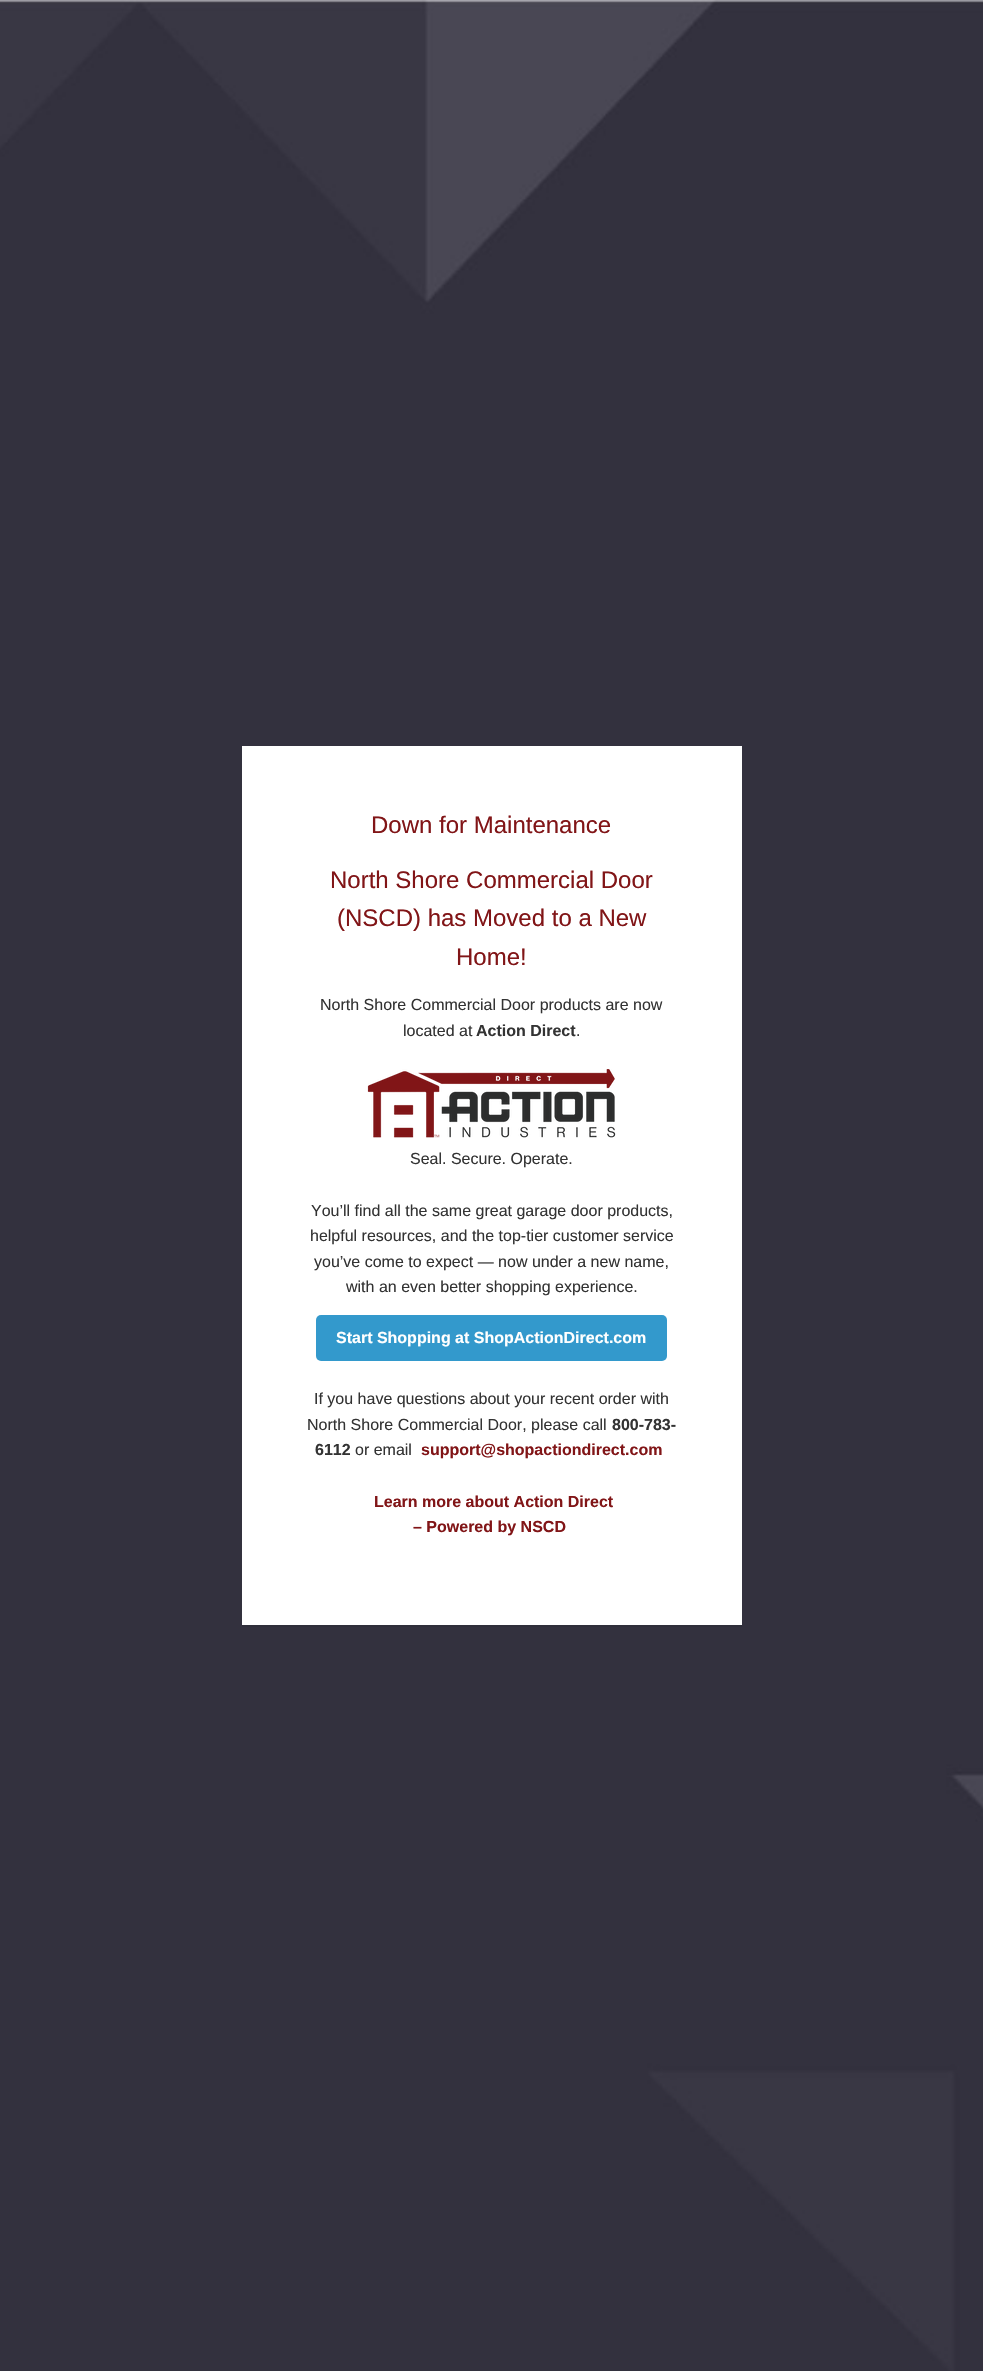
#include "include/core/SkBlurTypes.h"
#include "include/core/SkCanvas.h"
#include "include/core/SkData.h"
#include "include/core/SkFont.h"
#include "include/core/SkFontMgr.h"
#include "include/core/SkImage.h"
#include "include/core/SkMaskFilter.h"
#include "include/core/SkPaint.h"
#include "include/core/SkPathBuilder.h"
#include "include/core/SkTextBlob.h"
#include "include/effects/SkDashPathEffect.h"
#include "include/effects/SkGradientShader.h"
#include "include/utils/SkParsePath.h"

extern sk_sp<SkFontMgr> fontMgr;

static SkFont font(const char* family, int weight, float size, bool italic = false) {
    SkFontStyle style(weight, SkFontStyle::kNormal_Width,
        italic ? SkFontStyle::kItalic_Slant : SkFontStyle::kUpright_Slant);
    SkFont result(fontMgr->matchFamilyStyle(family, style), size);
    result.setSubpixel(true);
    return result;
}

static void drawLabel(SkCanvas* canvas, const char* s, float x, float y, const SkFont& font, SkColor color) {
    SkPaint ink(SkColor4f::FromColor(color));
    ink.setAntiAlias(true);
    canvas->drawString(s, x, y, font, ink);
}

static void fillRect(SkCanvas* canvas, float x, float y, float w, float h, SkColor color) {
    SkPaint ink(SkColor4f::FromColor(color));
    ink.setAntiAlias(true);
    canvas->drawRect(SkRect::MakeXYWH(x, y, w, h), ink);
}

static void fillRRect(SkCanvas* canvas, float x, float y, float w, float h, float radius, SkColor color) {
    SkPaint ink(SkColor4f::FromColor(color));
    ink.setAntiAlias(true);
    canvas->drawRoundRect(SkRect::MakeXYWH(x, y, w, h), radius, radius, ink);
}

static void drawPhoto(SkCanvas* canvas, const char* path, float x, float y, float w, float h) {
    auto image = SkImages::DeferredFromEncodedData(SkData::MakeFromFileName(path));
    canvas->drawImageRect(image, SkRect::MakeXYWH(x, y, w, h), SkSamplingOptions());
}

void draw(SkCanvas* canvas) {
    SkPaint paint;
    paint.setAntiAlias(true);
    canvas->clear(0xFFFFFFFF);
    drawPhoto(canvas, "assets/img1.png", 0, 0, 983, 2371);
    fillRect(canvas, 242, 1625, 500, 2, 0xFF2F2E3A);
    fillRect(canvas, 242, 746, 500, 879, 0xFFFFFFFF);
    SkFont font1 = font("Liberation Sans", 400, 24);
    drawLabel(canvas, "Down for Maintenance", 371, 833, font1, 0xFF811517);
    drawLabel(canvas, "North Shore Commercial Door", 330, 888, font1, 0xFF811517);
    drawLabel(canvas, "(NSCD) has Moved to a New", 337, 926, font1, 0xFF811517);
    drawLabel(canvas, "Home!", 456, 965, font1, 0xFF811517);
    SkFont font2 = font("Liberation Sans", 400, 16);
    drawLabel(canvas, "North Shore Commercial Door products are now", 320, 1010, font2, 0xFF333333);
    drawLabel(canvas, "located at", 403, 1036, font2, 0xFF333333);
    SkFont font3 = font("Liberation Sans", 700, 16);
    drawLabel(canvas, "Action Direct", 476, 1036, font3, 0xFF333333);
    drawLabel(canvas, ".", 576, 1036, font2, 0xFF333333);
    drawPhoto(canvas, "assets/img2.png", 367, 1069, 249, 69);
    drawLabel(canvas, "Seal. Secure. Operate.", 410, 1164, font2, 0xFF333333);
    drawLabel(canvas, "You’ll find all the same great garage door products,", 311, 1216, font2, 0xFF333333);
    drawLabel(canvas, "helpful resources, and the top-tier customer service", 310, 1241, font2, 0xFF333333);
    drawLabel(canvas, "you’ve come to expect — now under a new name,", 314, 1267, font2, 0xFF333333);
    drawLabel(canvas, "with an even better shopping experience.", 346, 1292, font2, 0xFF333333);
    fillRRect(canvas, 316, 1315, 351, 46, 5, 0xFF3399CC);
    drawLabel(canvas, "Start Shopping at ShopActionDirect.com", 336, 1343, font3, 0xFFFFFFFF);
    drawLabel(canvas, "If you have questions about your recent order with", 314, 1404, font2, 0xFF333333);
    drawLabel(canvas, "North Shore Commercial Door, please call", 307, 1430, font2, 0xFF333333);
    drawLabel(canvas, "800-783-", 612, 1430, font3, 0xFF333333);
    drawLabel(canvas, "6112", 315, 1455, font3, 0xFF333333);
    drawLabel(canvas, "or email", 355, 1455, font2, 0xFF333333);
    drawLabel(canvas, "support@shopactiondirect.com", 421, 1455, font3, 0xFF811517);
    drawLabel(canvas, "Learn more about Action Direct", 374, 1507, font3, 0xFF811517);
    drawLabel(canvas, "– Powered by NSCD", 413, 1532, font3, 0xFF811517);
}
